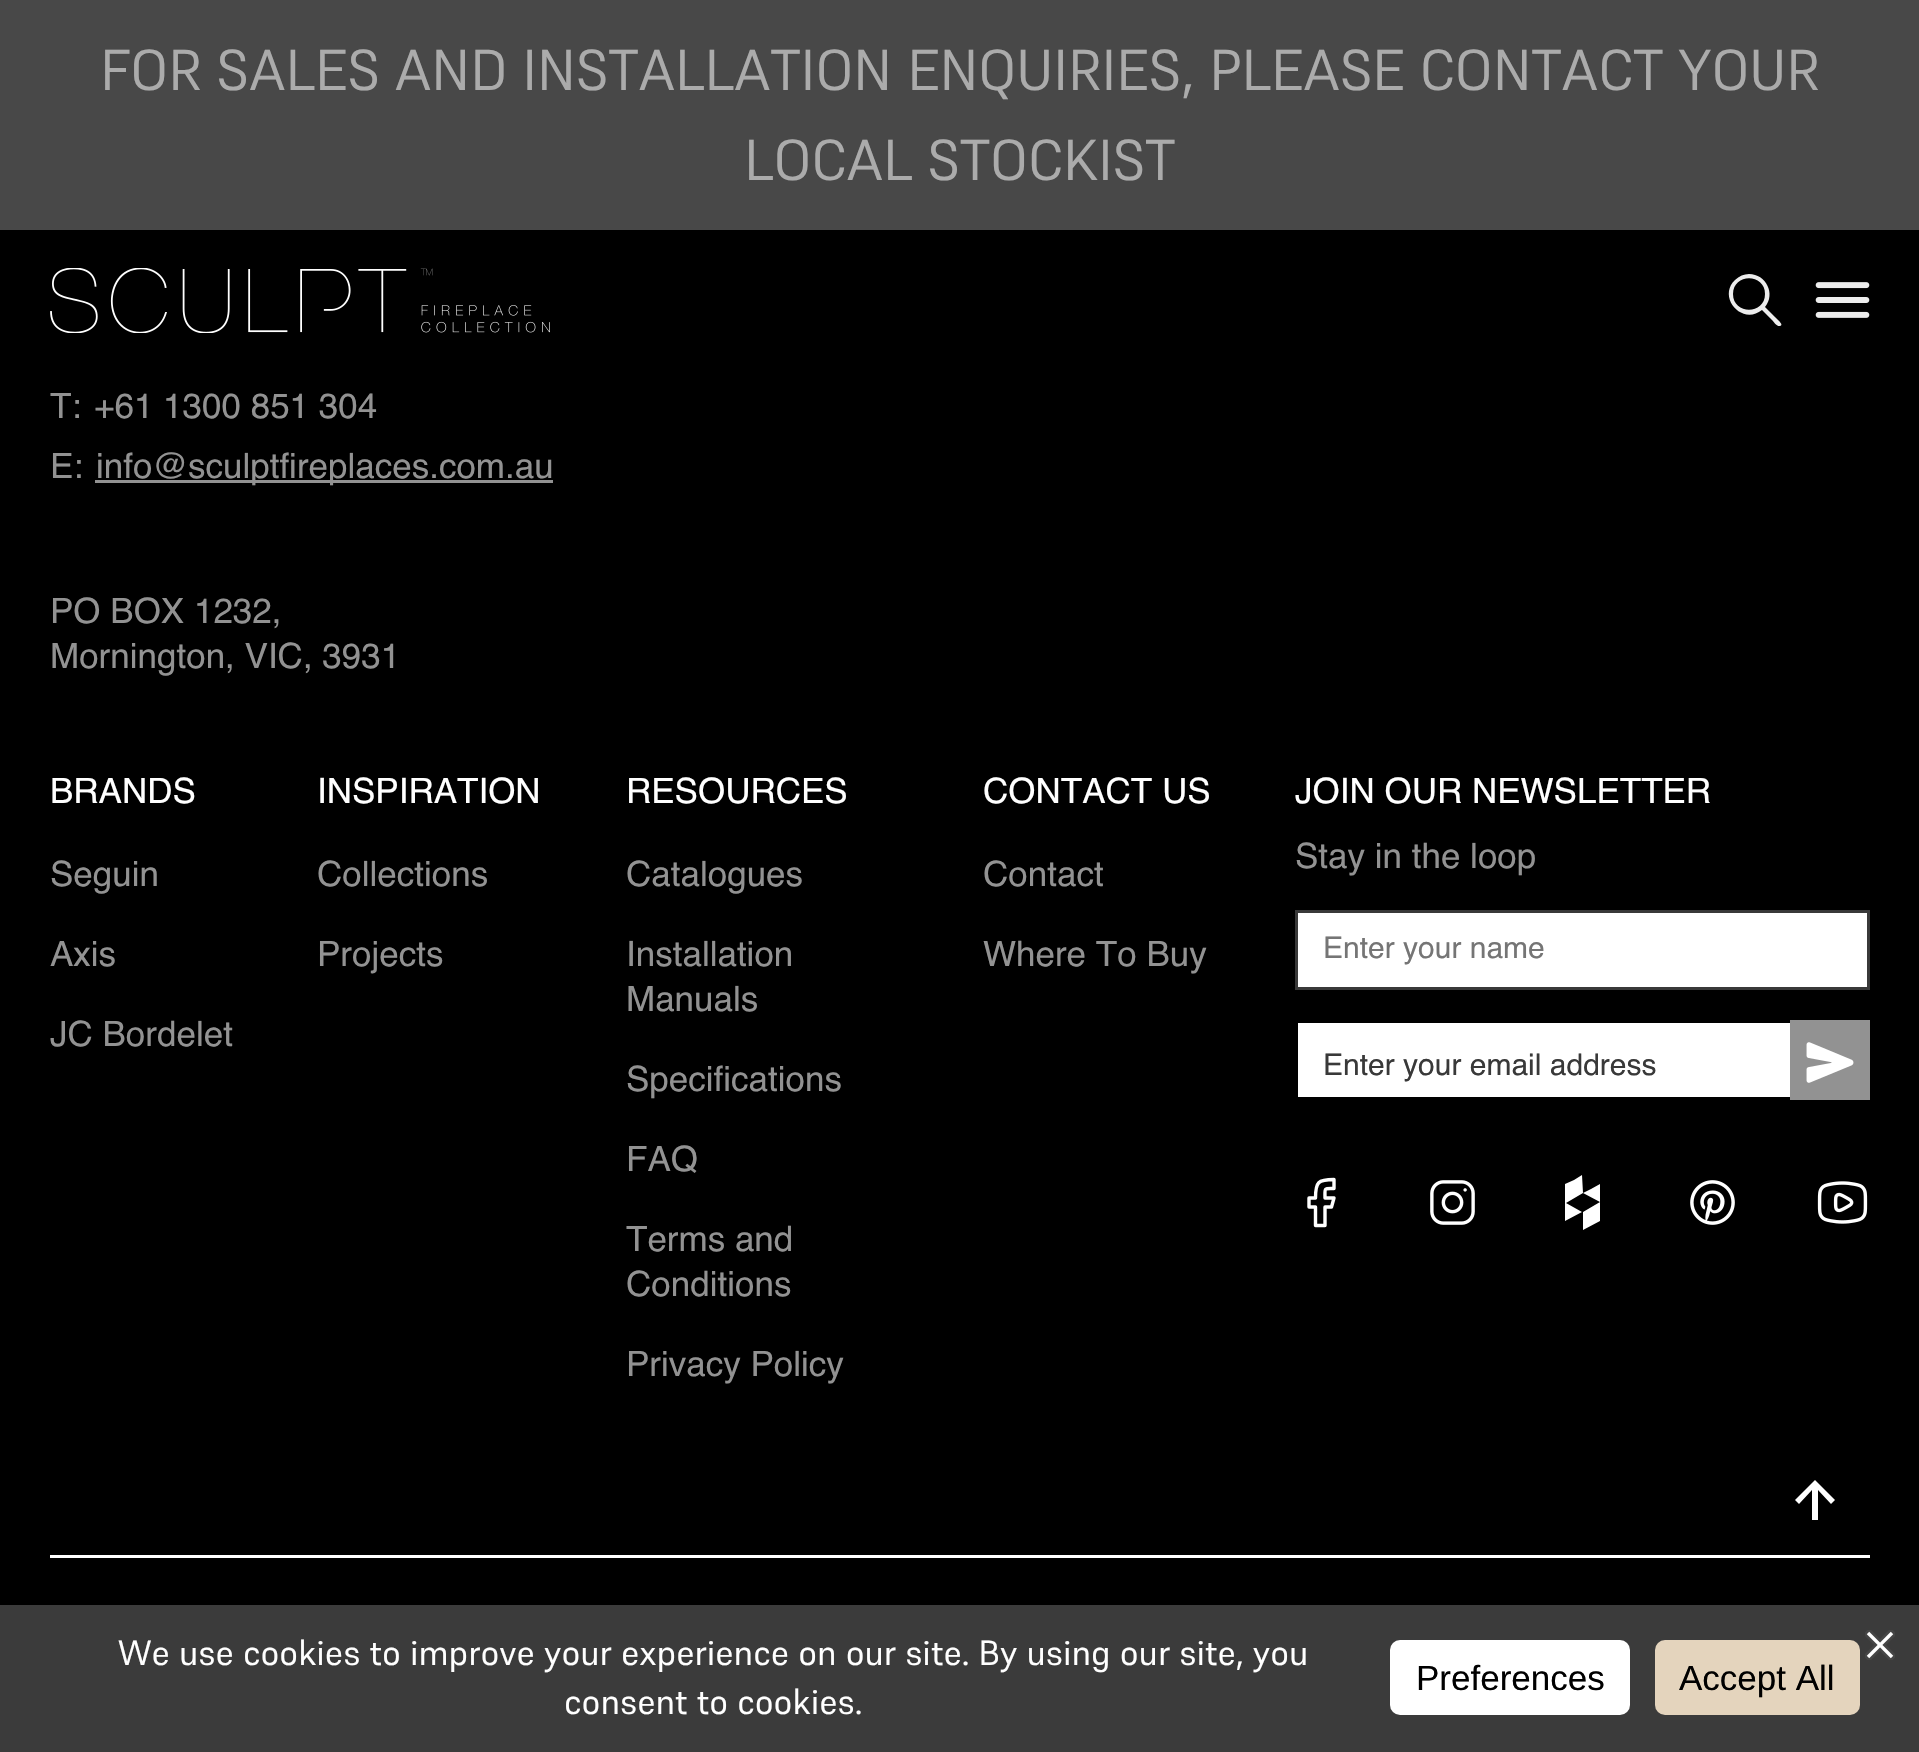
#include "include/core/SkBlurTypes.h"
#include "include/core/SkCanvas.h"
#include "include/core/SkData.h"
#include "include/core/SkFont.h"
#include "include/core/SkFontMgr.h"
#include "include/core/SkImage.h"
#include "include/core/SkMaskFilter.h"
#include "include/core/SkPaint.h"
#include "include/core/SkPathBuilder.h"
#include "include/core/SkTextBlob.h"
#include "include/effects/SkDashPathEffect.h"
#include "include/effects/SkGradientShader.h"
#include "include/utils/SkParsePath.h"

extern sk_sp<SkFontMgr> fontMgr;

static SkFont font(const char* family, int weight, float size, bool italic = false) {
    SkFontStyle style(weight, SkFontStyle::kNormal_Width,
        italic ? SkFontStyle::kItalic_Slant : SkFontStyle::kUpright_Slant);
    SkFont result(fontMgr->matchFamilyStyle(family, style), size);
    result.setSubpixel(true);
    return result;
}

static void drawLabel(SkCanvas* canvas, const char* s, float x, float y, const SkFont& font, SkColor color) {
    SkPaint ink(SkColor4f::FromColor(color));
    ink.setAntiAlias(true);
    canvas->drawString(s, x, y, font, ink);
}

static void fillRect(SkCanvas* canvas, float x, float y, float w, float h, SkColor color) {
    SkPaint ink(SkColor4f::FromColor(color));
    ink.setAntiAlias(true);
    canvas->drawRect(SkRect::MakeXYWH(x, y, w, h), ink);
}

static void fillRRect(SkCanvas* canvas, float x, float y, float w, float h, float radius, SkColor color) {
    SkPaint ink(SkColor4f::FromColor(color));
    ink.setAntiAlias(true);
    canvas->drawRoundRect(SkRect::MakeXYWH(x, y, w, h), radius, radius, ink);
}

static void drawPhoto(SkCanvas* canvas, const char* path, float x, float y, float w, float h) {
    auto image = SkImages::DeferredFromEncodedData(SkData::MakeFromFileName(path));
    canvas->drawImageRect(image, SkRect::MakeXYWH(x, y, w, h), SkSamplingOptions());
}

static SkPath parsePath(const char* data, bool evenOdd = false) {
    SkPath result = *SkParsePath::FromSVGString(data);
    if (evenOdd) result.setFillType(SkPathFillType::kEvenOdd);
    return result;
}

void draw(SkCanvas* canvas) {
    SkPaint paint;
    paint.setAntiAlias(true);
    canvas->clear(0xFF000000);
    fillRect(canvas, 0, 0, 1919, 230, 0xFF484848);
    SkFont font1 = font("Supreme", 400, 57.5f);
    drawLabel(canvas, "FOR SALES AND INSTALLATION ENQUIRIES, PLEASE CONTACT YOUR", 100, 90, font1, 0xFFABABAB);
    drawLabel(canvas, "LOCAL STOCKIST", 744, 180, font1, 0xFFABABAB);
    drawPhoto(canvas, "assets/img1.png", 50, 268, 500, 65);
    paint.setColor(0xFFEDEDED);
    canvas->drawPath(parsePath("M1733 294C1733 273 1765 273 1765 294C1765 315 1733 315 1733 294ZM1749 274C1744 274 1739 276 1735 280C1717 297 1742 326 1762 310L1772 320C1773 321 1777 327 1780 326C1784 325 1779 321 1775 317L1765 307C1776 294 1766 274 1749 274Z"), paint);
    drawPhoto(canvas, "assets/img2.png", 1815, 282, 55, 36);
    SkFont font2 = font("Helvetica", 400, 35);
    drawLabel(canvas, "T:", 50, 418, font2, 0xFF929292);
    drawLabel(canvas, "+61 1300 851 304", 94, 418, font2, 0xFF929292);
    drawLabel(canvas, "E:", 50, 478, font2, 0xFF929292);
    fillRect(canvas, 95, 480, 458, 3, 0xFF929292);
    drawLabel(canvas, "info@sculptfireplaces.com.au", 96, 478, font2, 0xFF929292);
    drawLabel(canvas, "PO BOX 1232,", 50, 623, font2, 0xFF929292);
    drawLabel(canvas, "Mornington, VIC, 3931", 50, 668, font2, 0xFF929292);
    drawLabel(canvas, "BRANDS", 50, 803, font2, 0xFFFFFFFF);
    drawLabel(canvas, "Seguin", 50, 886, font2, 0xFF929292);
    drawLabel(canvas, "Axis", 50, 966, font2, 0xFF929292);
    drawLabel(canvas, "JC Bordelet", 50, 1046, font2, 0xFF929292);
    drawLabel(canvas, "INSPIRATION", 317, 803, font2, 0xFFFFFFFF);
    drawLabel(canvas, "Collections", 317, 886, font2, 0xFF929292);
    drawLabel(canvas, "Projects", 317, 966, font2, 0xFF929292);
    drawLabel(canvas, "RESOURCES", 626, 803, font2, 0xFFFFFFFF);
    drawLabel(canvas, "Catalogues", 626, 886, font2, 0xFF929292);
    drawLabel(canvas, "Installation", 626, 966, font2, 0xFF929292);
    drawLabel(canvas, "Manuals", 626, 1011, font2, 0xFF929292);
    drawLabel(canvas, "Specifications", 626, 1091, font2, 0xFF929292);
    drawLabel(canvas, "FAQ", 626, 1171, font2, 0xFF929292);
    drawLabel(canvas, "Terms and", 626, 1251, font2, 0xFF929292);
    drawLabel(canvas, "Conditions", 626, 1296, font2, 0xFF929292);
    drawLabel(canvas, "Privacy Policy", 626, 1376, font2, 0xFF929292);
    drawLabel(canvas, "CONTACT US", 983, 803, font2, 0xFFFFFFFF);
    drawLabel(canvas, "Contact", 983, 886, font2, 0xFF929292);
    drawLabel(canvas, "Where To Buy", 983, 966, font2, 0xFF929292);
    drawLabel(canvas, "JOIN OUR NEWSLETTER", 1295, 803, font2, 0xFFFFFFFF);
    drawLabel(canvas, "Stay in the loop", 1295, 868, font2, 0xFF929292);
    paint.setColor(0xFFFFFFFF);
    canvas->drawRect(SkRect::MakeXYWH(1296.5f, 911.5f, 572, 77), paint);
    paint.setStroke(true);
    paint.setStrokeWidth(3);
    paint.setColor(0xFF393939);
    canvas->drawRect(SkRect::MakeXYWH(1296.5f, 911.5f, 572, 77), paint);
    SkFont font3 = font("Helvetica", 400, 30);
    drawLabel(canvas, "Enter your name", 1323, 958, font3, 0xFF757575);
    fillRect(canvas, 1298, 1023, 492, 74, 0xFFFFFFFF);
    drawLabel(canvas, "Enter your email address", 1323, 1075, font3, 0xFF393939);
    fillRect(canvas, 1790, 1020, 80, 80, 0xFF929292);
    drawPhoto(canvas, "assets/img3.png", 1806, 1042, 48, 41);
    paint.setStrokeWidth(3.4f);
    paint.setStrokeCap(SkPaint::kRound_Cap);
    paint.setStrokeJoin(SkPaint::kRound_Join);
    paint.setColor(0xFFFFFFFF);
    canvas->drawPath(parsePath("M1334 1179.5C1318 1179.5 1315.5 1182 1315.5 1198H1309V1207H1315.5V1225.5H1325V1207H1331.5L1334 1198H1325C1325 1187.5 1323.5 1188.5 1334 1188.5Z"), paint);
    drawPhoto(canvas, "assets/img4.png", 1430, 1180, 45, 45);
    paint.setStroke(false);
    canvas->drawPath(parsePath("M1574 1180L1565 1184V1221L1582 1212L1566 1203L1583 1193L1582 1175ZM1591 1189L1583 1193L1600 1202L1583 1212V1230L1600 1221V1184Z"), paint);
    drawPhoto(canvas, "assets/img5.png", 1690, 1180, 45, 45);
    drawPhoto(canvas, "assets/img6.png", 1817, 1181, 51, 43);
    fillRect(canvas, 50, 1555, 1820, 3, 0xFFFFFFFF);
    canvas->drawPath(parsePath("M1795 1500L1799 1504L1812 1490V1520H1818V1490L1831 1504L1835 1500L1815 1480Z"), paint);
    fillRect(canvas, 0, 1605, 1919, 147, 0xFF3B3B3B);
    SkFont font4 = font("Supreme", 400, 35);
    drawLabel(canvas, "We use cookies to improve your experience on our site. By using our site, you", 118, 1665, font4, 0xFFFFFFFF);
    drawLabel(canvas, "consent to cookies.", 564, 1714, font4, 0xFFFFFFFF);
    fillRRect(canvas, 1390, 1640, 240, 75, 10, 0xFFFFFFFF);
    SkFont font5 = font("Liberation Sans", 400, 35);
    drawLabel(canvas, "Preferences", 1416, 1690, font5, 0xFF000000);
    fillRRect(canvas, 1655, 1640, 205, 75, 10, 0xFFE4D4BD);
    drawLabel(canvas, "Accept All", 1679, 1690, font5, 0xFF000000);
    drawPhoto(canvas, "assets/img7.png", 1865, 1630, 30, 30);
}
